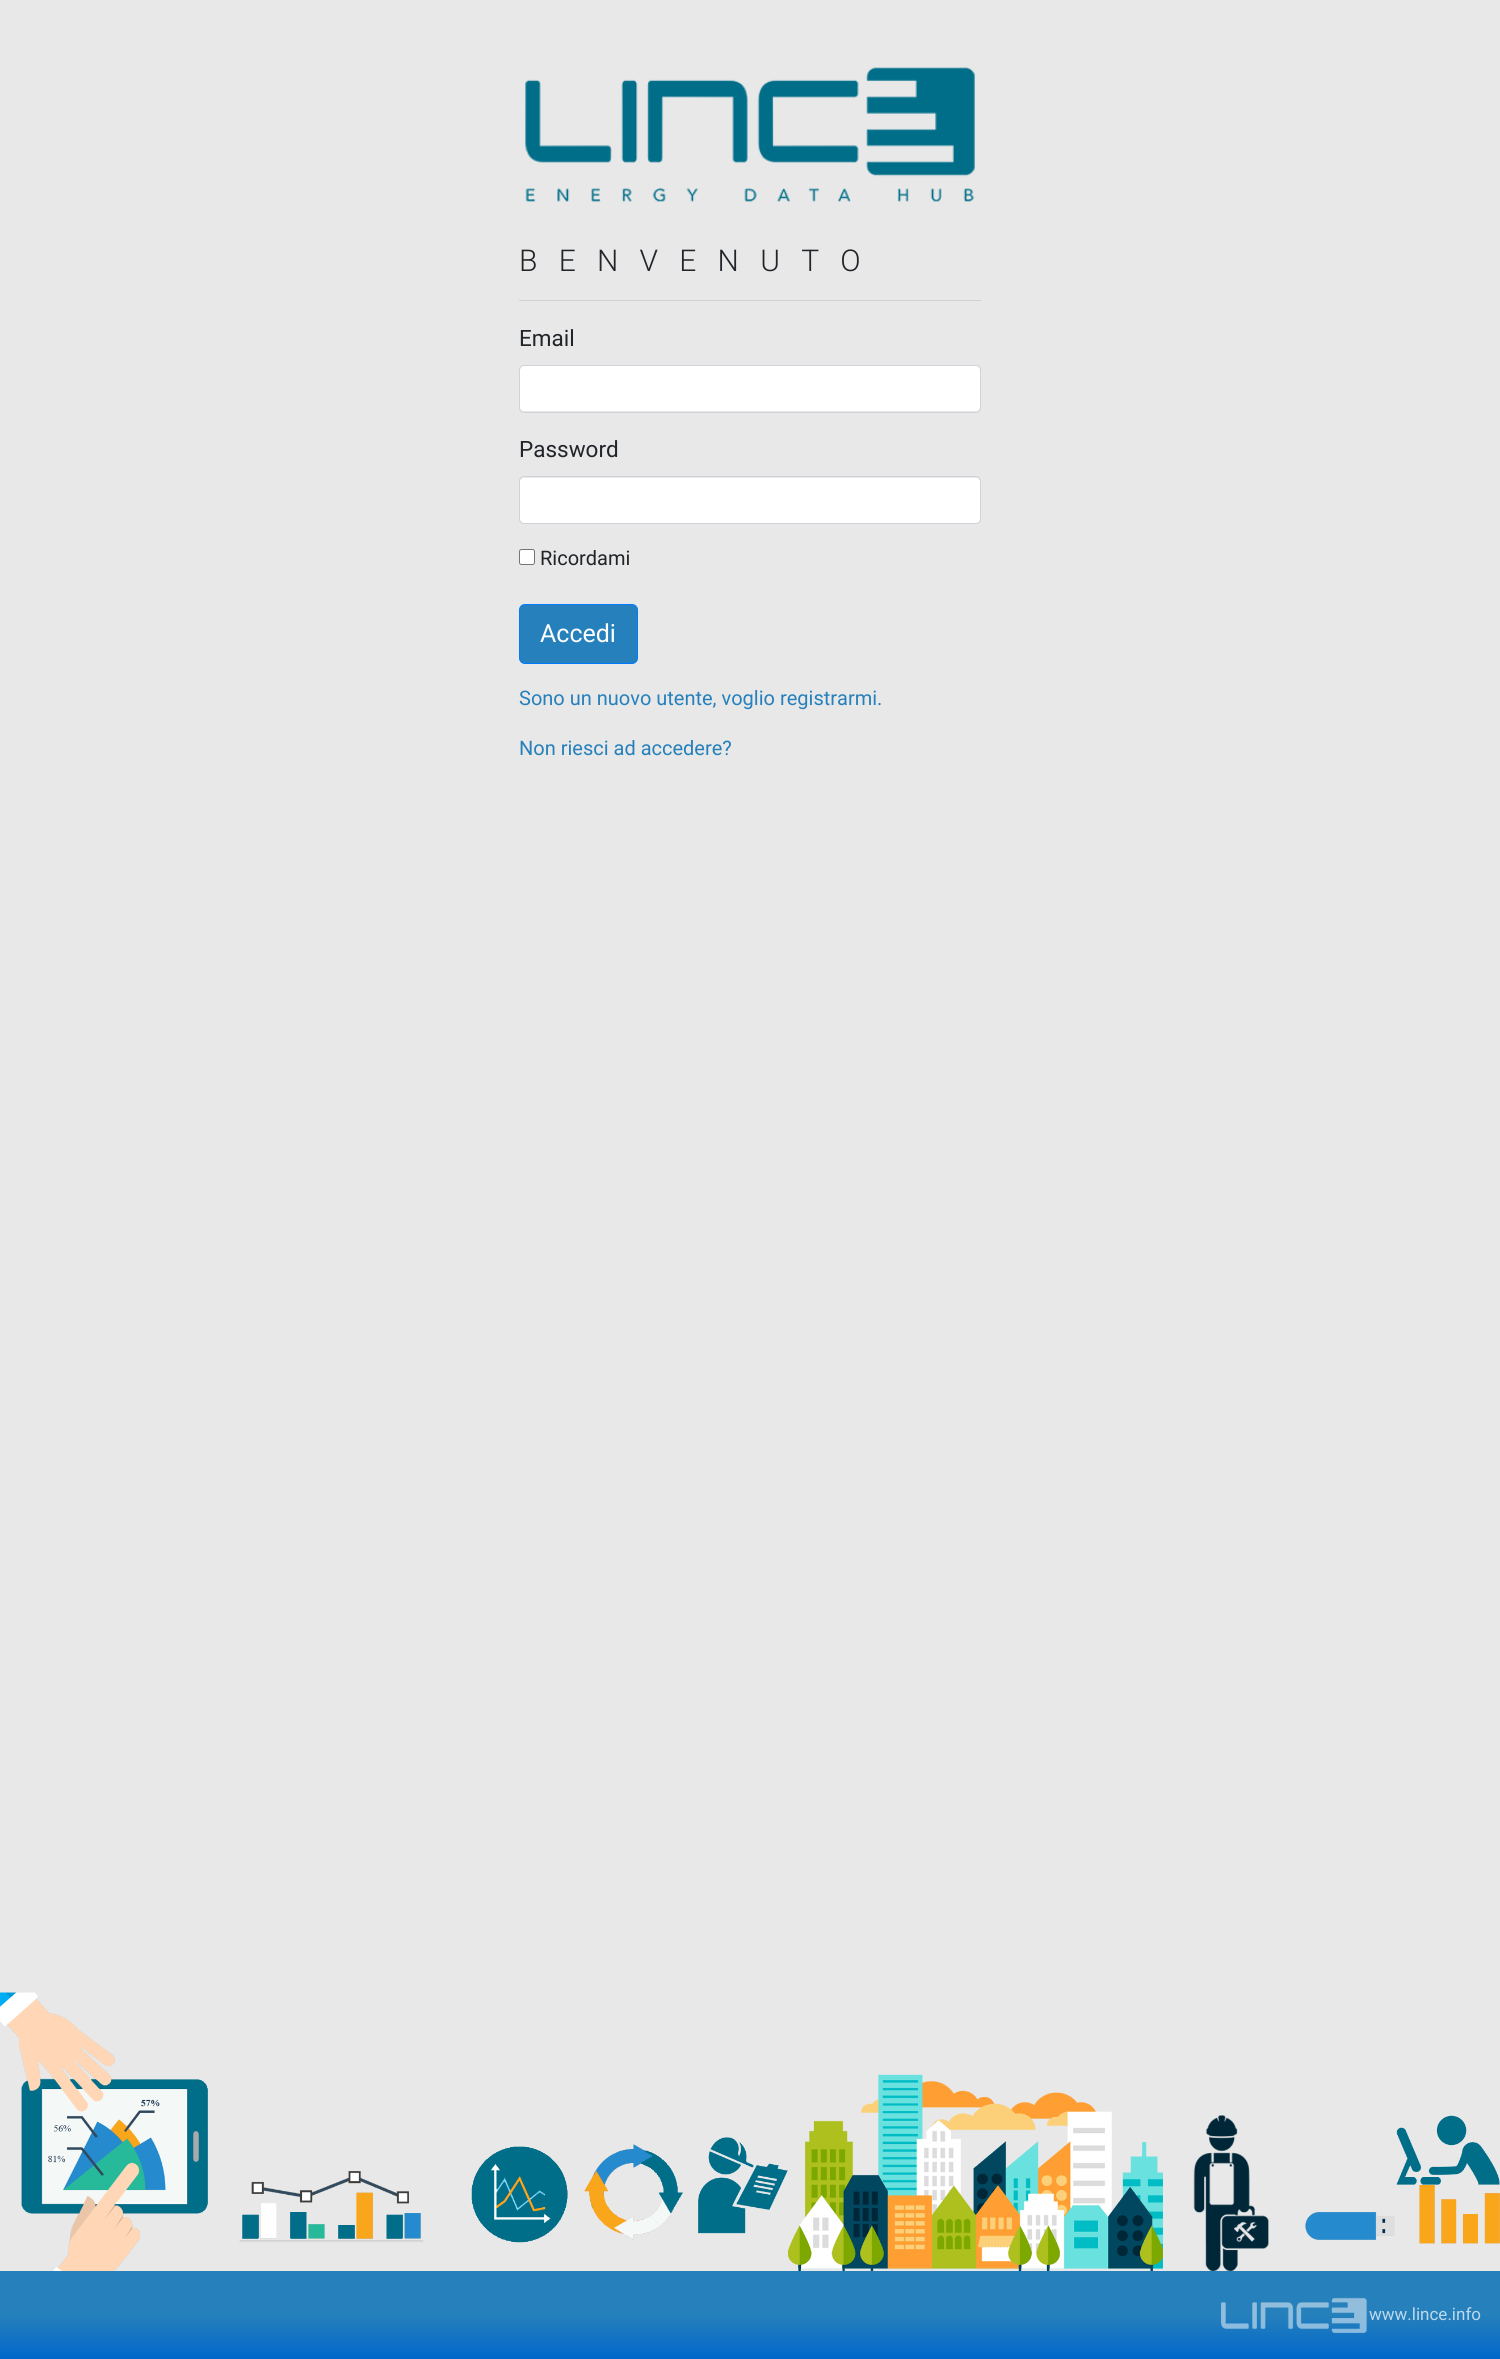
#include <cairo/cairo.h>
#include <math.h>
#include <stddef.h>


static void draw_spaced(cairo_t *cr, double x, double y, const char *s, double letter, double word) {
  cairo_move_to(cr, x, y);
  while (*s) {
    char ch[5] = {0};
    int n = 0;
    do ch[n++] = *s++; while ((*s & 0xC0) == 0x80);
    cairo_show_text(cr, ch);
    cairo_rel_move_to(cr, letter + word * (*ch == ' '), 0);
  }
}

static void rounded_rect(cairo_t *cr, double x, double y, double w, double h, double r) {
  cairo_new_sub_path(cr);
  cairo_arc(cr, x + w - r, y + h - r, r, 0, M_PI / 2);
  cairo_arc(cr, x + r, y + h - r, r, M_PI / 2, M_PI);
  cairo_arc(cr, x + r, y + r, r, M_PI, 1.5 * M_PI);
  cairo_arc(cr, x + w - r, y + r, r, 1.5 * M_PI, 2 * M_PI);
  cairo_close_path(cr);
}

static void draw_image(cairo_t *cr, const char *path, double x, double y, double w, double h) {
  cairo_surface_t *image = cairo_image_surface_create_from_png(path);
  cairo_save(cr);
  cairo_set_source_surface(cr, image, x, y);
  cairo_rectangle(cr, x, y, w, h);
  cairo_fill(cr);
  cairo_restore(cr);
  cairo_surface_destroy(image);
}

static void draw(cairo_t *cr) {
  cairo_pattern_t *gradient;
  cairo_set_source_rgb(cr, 232 / 255.0, 232 / 255.0, 232 / 255.0);
  cairo_paint(cr);
  draw_image(cr, "images/1.png", 0, 1992, 1500, 279);
  draw_image(cr, "images/2.png", 525, 67, 450, 135);
  cairo_set_source_rgb(cr, 209 / 255.0, 209 / 255.0, 209 / 255.0);
  cairo_rectangle(cr, 519, 300, 462, 1);
  cairo_fill(cr);
  cairo_set_source_rgb(cr, 1, 1, 1);
  rounded_rect(cr, 520, 366, 460, 45, 4);
  cairo_fill(cr);
  rounded_rect(cr, 519.5, 365.5, 461, 47, 4.5);
  cairo_set_source_rgb(cr, 206 / 255.0, 212 / 255.0, 218 / 255.0);
  cairo_set_line_width(cr, 1);
  cairo_stroke(cr);
  cairo_set_source_rgb(cr, 1, 1, 1);
  rounded_rect(cr, 520, 478, 460, 45, 4);
  cairo_fill(cr);
  rounded_rect(cr, 519.5, 476.5, 461, 47, 4.5);
  cairo_set_source_rgb(cr, 206 / 255.0, 212 / 255.0, 218 / 255.0);
  cairo_stroke(cr);
  cairo_set_source_rgb(cr, 1, 1, 1);
  rounded_rect(cr, 519.5, 549.5, 15, 15, 2);
  cairo_fill_preserve(cr);
  cairo_set_source_rgb(cr, 118 / 255.0, 118 / 255.0, 118 / 255.0);
  cairo_stroke(cr);
  cairo_set_source_rgb(cr, 37 / 255.0, 128 / 255.0, 187 / 255.0);
  rounded_rect(cr, 519.5, 604.5, 118, 59, 5.5);
  cairo_fill_preserve(cr);
  cairo_set_source_rgb(cr, 0, 123 / 255.0, 1);
  cairo_stroke(cr);
  gradient = cairo_pattern_create_linear(750, 2271, 750, 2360);
  cairo_pattern_add_color_stop_rgba(gradient, 0.5, 37 / 255.0, 128 / 255.0, 187 / 255.0, 1);
  cairo_pattern_add_color_stop_rgba(gradient, 1, 0, 102 / 255.0, 204 / 255.0, 1);
  cairo_set_source(cr, gradient);
  cairo_pattern_destroy(gradient);
  cairo_rectangle(cr, 0, 2271, 1500, 88);
  cairo_fill(cr);
  draw_image(cr, "images/3.png", 1221, 2297, 146, 36);
  cairo_select_font_face(cr, "Roboto Light", CAIRO_FONT_SLANT_NORMAL, CAIRO_FONT_WEIGHT_NORMAL);
  cairo_set_font_size(cr, 30);
  cairo_set_source_rgb(cr, 33 / 255.0, 37 / 255.0, 41 / 255.0);
  draw_spaced(cr, 519, 271, "BENVENUTO", 21.25, 0);
  cairo_select_font_face(cr, "Roboto", CAIRO_FONT_SLANT_NORMAL, CAIRO_FONT_WEIGHT_NORMAL);
  cairo_set_font_size(cr, 22.5);
  cairo_move_to(cr, 519, 346);
  cairo_show_text(cr, "Email");
  cairo_move_to(cr, 519, 457);
  cairo_show_text(cr, "Password");
  cairo_set_font_size(cr, 20);
  cairo_move_to(cr, 540, 565);
  cairo_show_text(cr, "Ricordami");
  cairo_set_font_size(cr, 25);
  cairo_set_source_rgb(cr, 1, 1, 1);
  cairo_move_to(cr, 540, 642);
  cairo_show_text(cr, "Accedi");
  cairo_set_font_size(cr, 20);
  cairo_set_source_rgb(cr, 37 / 255.0, 128 / 255.0, 187 / 255.0);
  cairo_move_to(cr, 519, 705);
  cairo_show_text(cr, "Sono un nuovo utente, voglio registrarmi.");
  cairo_move_to(cr, 519, 755);
  cairo_show_text(cr, "Non riesci ad accedere?");
  cairo_set_font_size(cr, 17);
  cairo_set_source_rgb(cr, 189 / 255.0, 217 / 255.0, 235 / 255.0);
  cairo_move_to(cr, 1369, 2320);
  cairo_show_text(cr, "www.lince.info");
}

int main(void) {
  cairo_surface_t *surface = cairo_image_surface_create(CAIRO_FORMAT_RGB24, 1500, 2359);
  cairo_t *cr = cairo_create(surface);
  cairo_font_options_t *options = cairo_font_options_create();
  cairo_font_options_set_hint_metrics(options, CAIRO_HINT_METRICS_OFF);
  cairo_font_options_set_hint_style(options, CAIRO_HINT_STYLE_NONE);
  cairo_set_font_options(cr, options);
  cairo_set_miter_limit(cr, 4);
  draw(cr);
  cairo_surface_write_to_png(surface, "out.png");
  cairo_font_options_destroy(options);
  cairo_destroy(cr);
  cairo_surface_destroy(surface);
  return 0;
}
